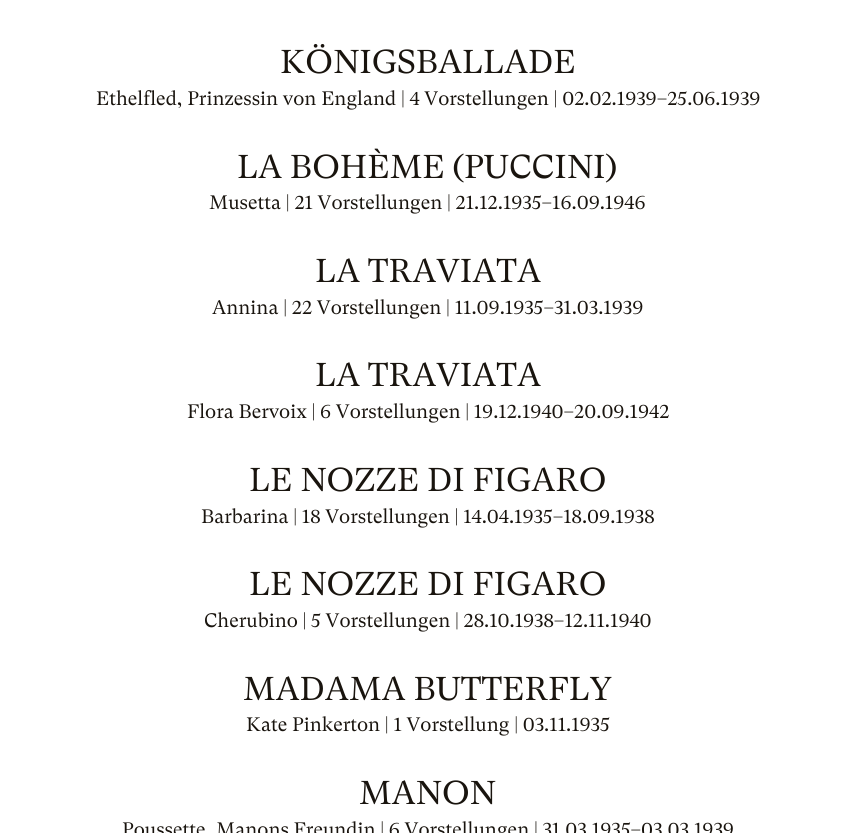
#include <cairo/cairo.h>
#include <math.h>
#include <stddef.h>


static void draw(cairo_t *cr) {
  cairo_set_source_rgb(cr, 1, 1, 1);
  cairo_paint(cr);
  cairo_select_font_face(cr, "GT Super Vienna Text", CAIRO_FONT_SLANT_NORMAL, CAIRO_FONT_WEIGHT_NORMAL);
  cairo_set_font_size(cr, 33);
  cairo_set_source_rgb(cr, 25 / 255.0, 20 / 255.0, 14 / 255.0);
  cairo_move_to(cr, 280, 73);
  cairo_show_text(cr, "KÖNIGSBALLADE");
  cairo_set_font_size(cr, 19.45);
  cairo_move_to(cr, 96, 105);
  cairo_show_text(cr, "Ethelfled, Prinzessin von England | 4 Vorstellungen | 02.02.1939–25.06.1939");
  cairo_set_font_size(cr, 33);
  cairo_move_to(cr, 237, 178);
  cairo_show_text(cr, "LA BOHÈME (PUCCINI)");
  cairo_set_font_size(cr, 19.45);
  cairo_move_to(cr, 209, 209);
  cairo_show_text(cr, "Musetta | 21 Vorstellungen | 21.12.1935–16.09.1946");
  cairo_set_font_size(cr, 33);
  cairo_move_to(cr, 315, 282);
  cairo_show_text(cr, "LA TRAVIATA");
  cairo_set_font_size(cr, 19.45);
  cairo_move_to(cr, 212, 314);
  cairo_show_text(cr, "Annina | 22 Vorstellungen | 11.09.1935–31.03.1939");
  cairo_set_font_size(cr, 33);
  cairo_move_to(cr, 315, 386);
  cairo_show_text(cr, "LA TRAVIATA");
  cairo_set_font_size(cr, 19.45);
  cairo_move_to(cr, 187, 418);
  cairo_show_text(cr, "Flora Bervoix | 6 Vorstellungen | 19.12.1940–20.09.1942");
  cairo_set_font_size(cr, 33);
  cairo_move_to(cr, 249, 491);
  cairo_show_text(cr, "LE NOZZE DI FIGARO");
  cairo_set_font_size(cr, 19.45);
  cairo_move_to(cr, 201, 523);
  cairo_show_text(cr, "Barbarina | 18 Vorstellungen | 14.04.1935–18.09.1938");
  cairo_set_font_size(cr, 33);
  cairo_move_to(cr, 249, 595);
  cairo_show_text(cr, "LE NOZZE DI FIGARO");
  cairo_set_font_size(cr, 19.45);
  cairo_move_to(cr, 204, 627);
  cairo_show_text(cr, "Cherubino | 5 Vorstellungen | 28.10.1938–12.11.1940");
  cairo_set_font_size(cr, 33);
  cairo_move_to(cr, 243, 700);
  cairo_show_text(cr, "MADAMA BUTTERFLY");
  cairo_set_font_size(cr, 19.45);
  cairo_move_to(cr, 246, 731);
  cairo_show_text(cr, "Kate Pinkerton | 1 Vorstellung | 03.11.1935");
  cairo_set_font_size(cr, 33);
  cairo_move_to(cr, 359, 804);
  cairo_show_text(cr, "MANON");
  cairo_set_font_size(cr, 19.45);
  cairo_move_to(cr, 122, 836);
  cairo_show_text(cr, "Poussette, Manons Freundin | 6 Vorstellungen | 31.03.1935–03.03.1939");
}

int main(void) {
  cairo_surface_t *surface = cairo_image_surface_create(CAIRO_FORMAT_RGB24, 855, 833);
  cairo_t *cr = cairo_create(surface);
  cairo_font_options_t *options = cairo_font_options_create();
  cairo_font_options_set_hint_metrics(options, CAIRO_HINT_METRICS_OFF);
  cairo_font_options_set_hint_style(options, CAIRO_HINT_STYLE_NONE);
  cairo_set_font_options(cr, options);
  cairo_set_miter_limit(cr, 4);
  draw(cr);
  cairo_surface_write_to_png(surface, "out.png");
  cairo_font_options_destroy(options);
  cairo_destroy(cr);
  cairo_surface_destroy(surface);
  return 0;
}
